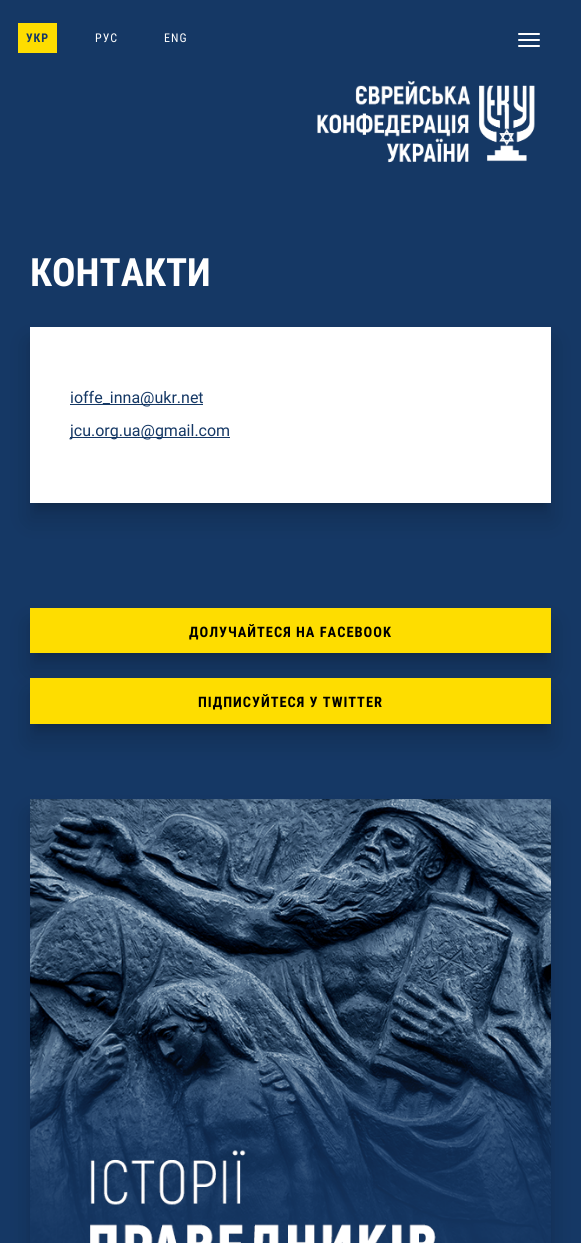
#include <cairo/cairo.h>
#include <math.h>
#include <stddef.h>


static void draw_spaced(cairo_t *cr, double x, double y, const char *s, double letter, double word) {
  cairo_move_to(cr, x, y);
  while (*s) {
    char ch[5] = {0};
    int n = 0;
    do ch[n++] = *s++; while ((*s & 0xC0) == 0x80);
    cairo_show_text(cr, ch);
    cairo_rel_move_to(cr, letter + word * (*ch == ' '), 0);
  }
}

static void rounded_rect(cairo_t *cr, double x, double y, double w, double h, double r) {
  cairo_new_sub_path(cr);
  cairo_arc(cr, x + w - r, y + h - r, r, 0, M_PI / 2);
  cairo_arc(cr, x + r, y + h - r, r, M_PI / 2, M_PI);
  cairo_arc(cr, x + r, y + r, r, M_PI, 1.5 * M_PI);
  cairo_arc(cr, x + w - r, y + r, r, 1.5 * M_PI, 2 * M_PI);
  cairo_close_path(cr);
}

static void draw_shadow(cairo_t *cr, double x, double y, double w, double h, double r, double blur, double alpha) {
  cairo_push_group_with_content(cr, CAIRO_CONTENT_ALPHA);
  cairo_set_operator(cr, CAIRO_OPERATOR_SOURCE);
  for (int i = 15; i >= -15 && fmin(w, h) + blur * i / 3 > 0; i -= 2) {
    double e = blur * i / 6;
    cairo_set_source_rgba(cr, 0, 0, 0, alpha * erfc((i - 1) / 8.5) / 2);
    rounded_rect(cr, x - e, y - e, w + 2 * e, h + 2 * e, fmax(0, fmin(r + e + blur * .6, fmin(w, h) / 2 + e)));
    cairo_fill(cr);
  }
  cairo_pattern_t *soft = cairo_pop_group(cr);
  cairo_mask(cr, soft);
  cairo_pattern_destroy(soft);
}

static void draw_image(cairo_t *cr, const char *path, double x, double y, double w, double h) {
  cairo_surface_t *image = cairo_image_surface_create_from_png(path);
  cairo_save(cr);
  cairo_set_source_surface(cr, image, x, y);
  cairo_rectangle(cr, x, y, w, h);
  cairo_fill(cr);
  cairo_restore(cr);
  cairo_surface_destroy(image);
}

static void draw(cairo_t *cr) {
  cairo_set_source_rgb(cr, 21 / 255.0, 56 / 255.0, 101 / 255.0);
  cairo_paint(cr);
  cairo_set_source_rgb(cr, 254 / 255.0, 221 / 255.0, 0);
  cairo_rectangle(cr, 18, 23, 39, 30);
  cairo_fill(cr);
  draw_image(cr, "images/1.png", 317, 81, 218, 82);
  cairo_set_source_rgb(cr, 1, 1, 1);
  rounded_rect(cr, 518, 33, 22, 2, 1);
  cairo_fill(cr);
  rounded_rect(cr, 518, 39, 22, 2, 1);
  cairo_fill(cr);
  rounded_rect(cr, 518, 45, 22, 2, 1);
  cairo_fill(cr);
  cairo_set_source_rgb(cr, 0, 0, 0);
  draw_shadow(cr, 35, 340, 511, 166, 0, 5, 0.2);
  draw_shadow(cr, 28, 341, 525, 180, 0, 12, 0.14);
  cairo_set_source_rgb(cr, 1, 1, 1);
  cairo_rectangle(cr, 30, 327, 521, 176);
  cairo_fill(cr);
  cairo_set_source_rgb(cr, 21 / 255.0, 56 / 255.0, 101 / 255.0);
  cairo_rectangle(cr, 70, 404, 133, 1);
  cairo_fill(cr);
  cairo_rectangle(cr, 70, 437, 160, 1);
  cairo_fill(cr);
  cairo_set_source_rgb(cr, 0, 0, 0);
  draw_shadow(cr, 35, 621, 511, 35, 0, 5, 0.2);
  draw_shadow(cr, 28, 622, 525, 49, 0, 12, 0.14);
  cairo_set_source_rgb(cr, 254 / 255.0, 221 / 255.0, 0);
  cairo_rectangle(cr, 30, 608, 521, 45);
  cairo_fill(cr);
  cairo_set_source_rgb(cr, 0, 0, 0);
  draw_shadow(cr, 35, 691, 511, 36, 0, 5, 0.2);
  draw_shadow(cr, 28, 692, 525, 50, 0, 12, 0.14);
  cairo_set_source_rgb(cr, 254 / 255.0, 221 / 255.0, 0);
  cairo_rectangle(cr, 30, 678, 521, 46);
  cairo_fill(cr);
  cairo_set_source_rgb(cr, 0, 0, 0);
  draw_shadow(cr, 35, 812, 511, 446, 0, 5, 0.2);
  draw_shadow(cr, 28, 813, 525, 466, 0, 12, 0.14);
  draw_image(cr, "images/2.png", 30, 799, 521, 444);
  cairo_select_font_face(cr, "Roboto Condensed", CAIRO_FONT_SLANT_NORMAL, CAIRO_FONT_WEIGHT_BOLD);
  cairo_set_font_size(cr, 12);
  cairo_set_source_rgb(cr, 21 / 255.0, 56 / 255.0, 101 / 255.0);
  draw_spaced(cr, 26, 42, "УКР", 1, 0);
  cairo_select_font_face(cr, "Roboto Condensed", CAIRO_FONT_SLANT_NORMAL, CAIRO_FONT_WEIGHT_NORMAL);
  cairo_set_source_rgb(cr, 1, 1, 1);
  draw_spaced(cr, 95, 42, "РУС", 1, 0);
  draw_spaced(cr, 164, 42, "ENG", 1, 0);
  cairo_select_font_face(cr, "Roboto Condensed", CAIRO_FONT_SLANT_NORMAL, CAIRO_FONT_WEIGHT_BOLD);
  cairo_set_font_size(cr, 39);
  cairo_move_to(cr, 30, 286);
  cairo_show_text(cr, "КОНТАКТИ");
  cairo_select_font_face(cr, "Roboto", CAIRO_FONT_SLANT_NORMAL, CAIRO_FONT_WEIGHT_NORMAL);
  cairo_set_font_size(cr, 16);
  cairo_set_source_rgb(cr, 21 / 255.0, 56 / 255.0, 101 / 255.0);
  cairo_move_to(cr, 70, 403);
  cairo_show_text(cr, "ioffe_inna@ukr.net");
  cairo_move_to(cr, 70, 436);
  cairo_show_text(cr, "jcu.org.ua@gmail.com");
  cairo_select_font_face(cr, "Roboto Condensed", CAIRO_FONT_SLANT_NORMAL, CAIRO_FONT_WEIGHT_BOLD);
  cairo_set_font_size(cr, 14.4);
  cairo_set_source_rgb(cr, 0, 0, 0);
  draw_spaced(cr, 189, 637, "ДОЛУЧАЙТЕСЯ НА FACEBOOK", 1, 0);
  draw_spaced(cr, 198, 707, "ПІДПИСУЙТЕСЯ У TWITTER", 1, 0);
}

int main(void) {
  cairo_surface_t *surface = cairo_image_surface_create(CAIRO_FORMAT_RGB24, 581, 1243);
  cairo_t *cr = cairo_create(surface);
  cairo_font_options_t *options = cairo_font_options_create();
  cairo_font_options_set_hint_metrics(options, CAIRO_HINT_METRICS_OFF);
  cairo_font_options_set_hint_style(options, CAIRO_HINT_STYLE_NONE);
  cairo_set_font_options(cr, options);
  cairo_set_miter_limit(cr, 4);
  draw(cr);
  cairo_surface_write_to_png(surface, "out.png");
  cairo_font_options_destroy(options);
  cairo_destroy(cr);
  cairo_surface_destroy(surface);
  return 0;
}
